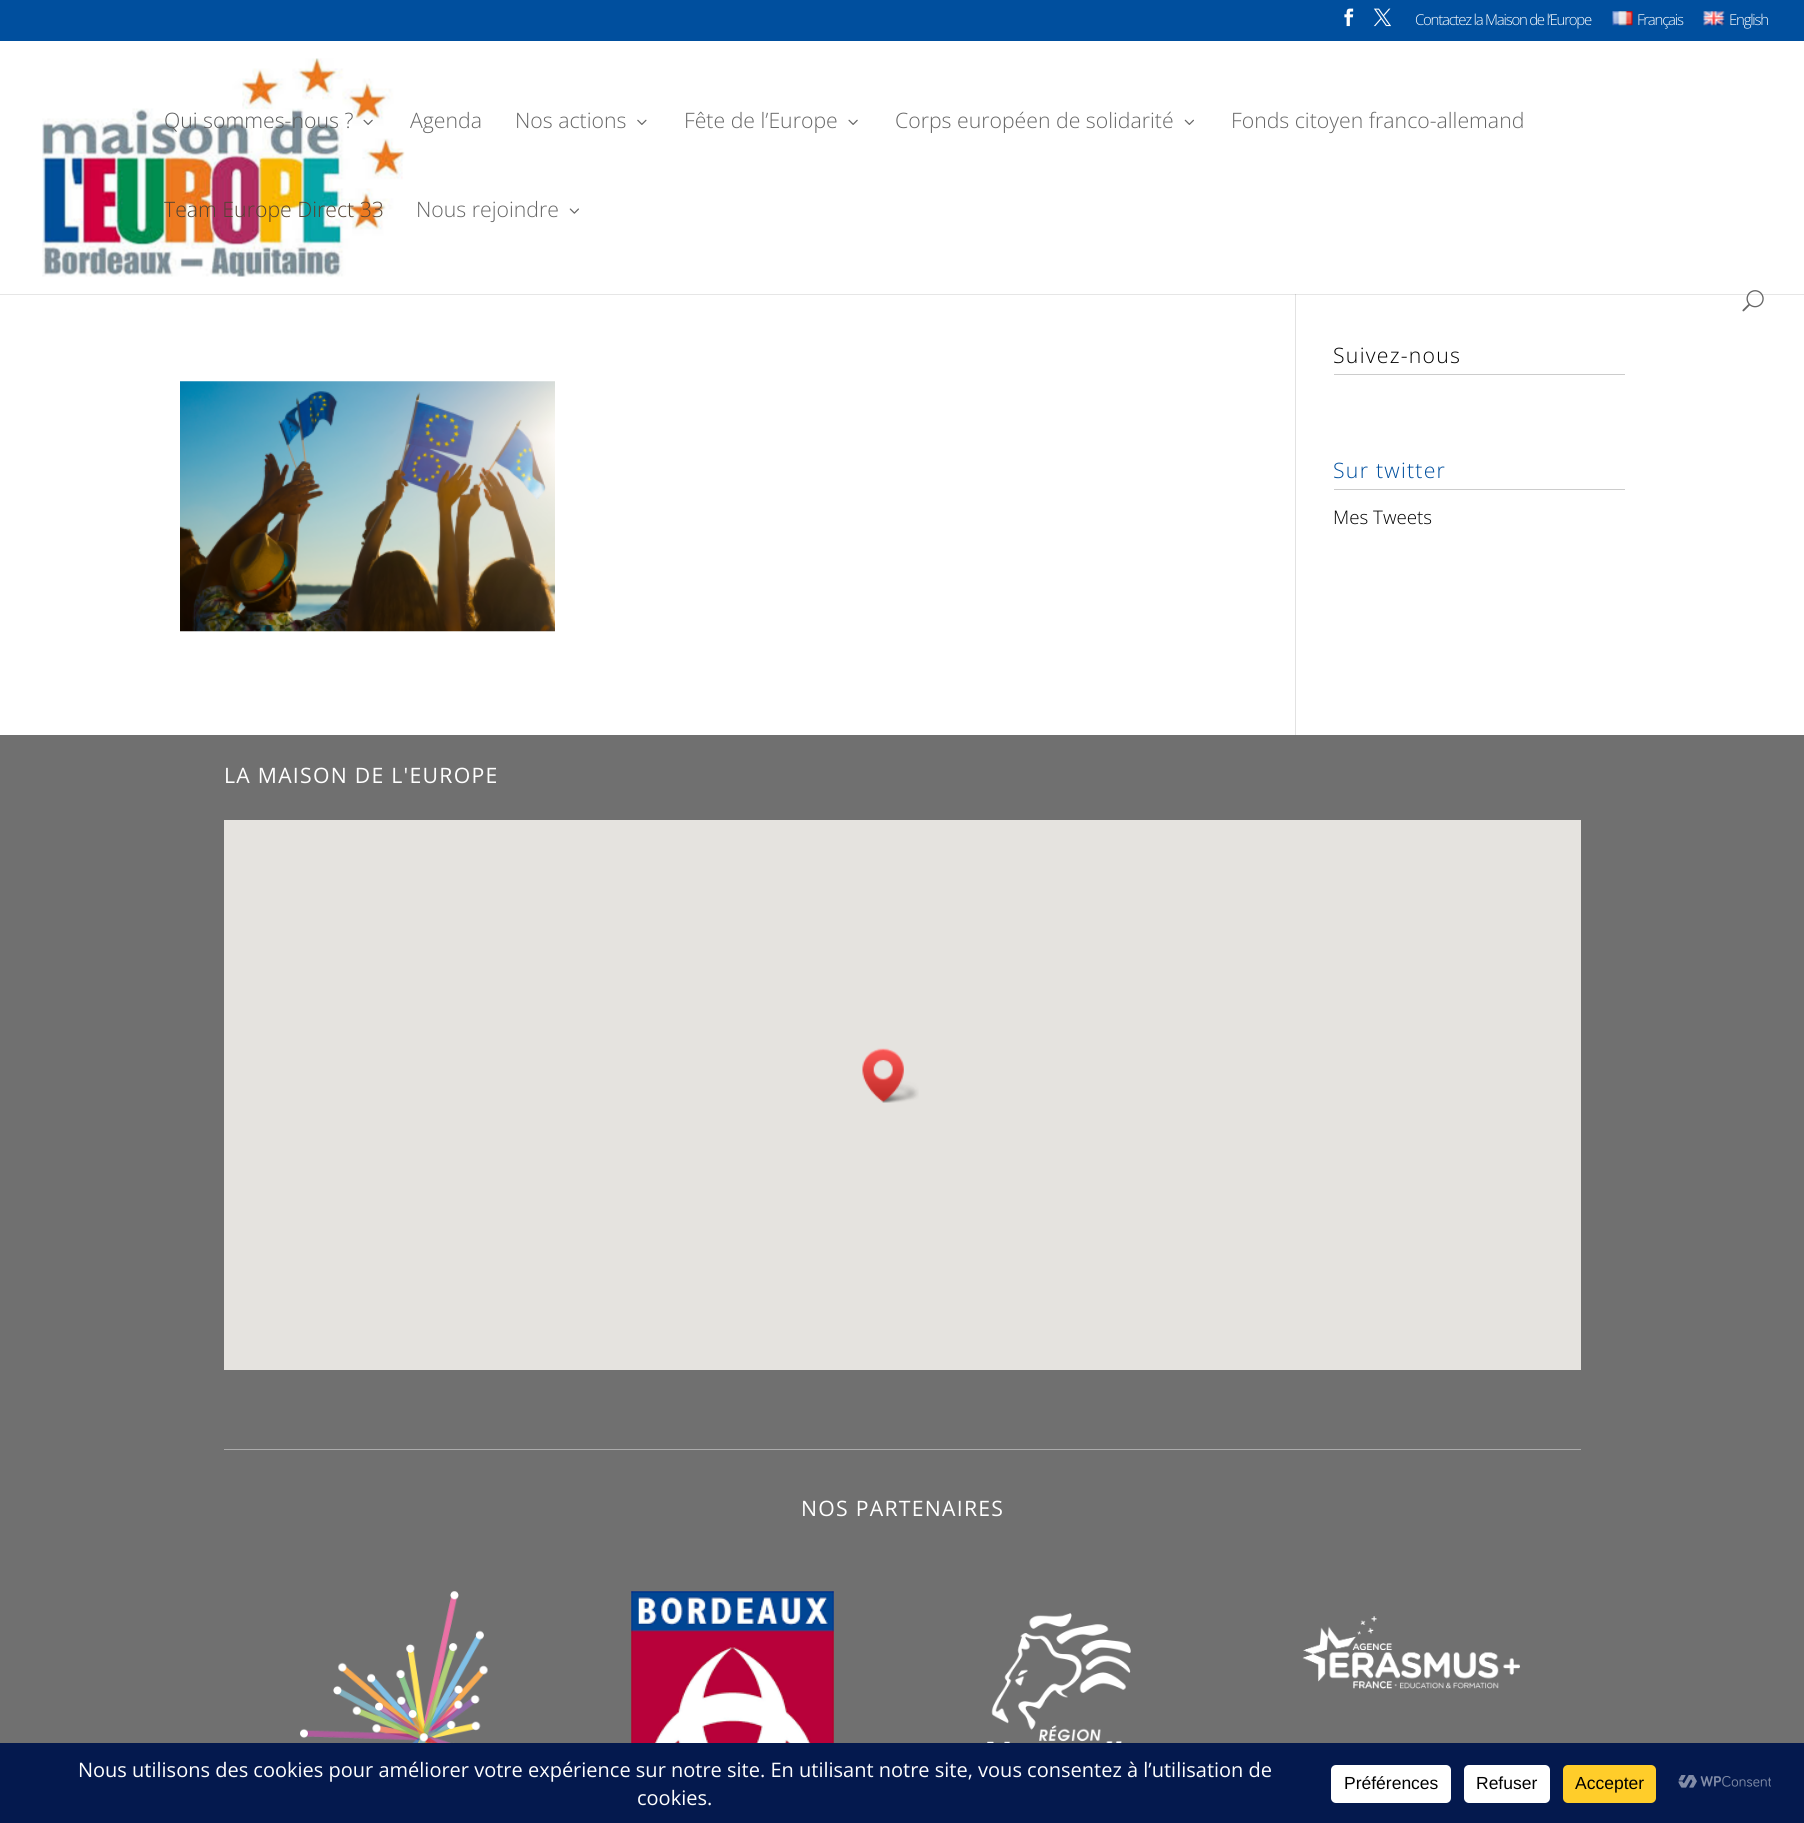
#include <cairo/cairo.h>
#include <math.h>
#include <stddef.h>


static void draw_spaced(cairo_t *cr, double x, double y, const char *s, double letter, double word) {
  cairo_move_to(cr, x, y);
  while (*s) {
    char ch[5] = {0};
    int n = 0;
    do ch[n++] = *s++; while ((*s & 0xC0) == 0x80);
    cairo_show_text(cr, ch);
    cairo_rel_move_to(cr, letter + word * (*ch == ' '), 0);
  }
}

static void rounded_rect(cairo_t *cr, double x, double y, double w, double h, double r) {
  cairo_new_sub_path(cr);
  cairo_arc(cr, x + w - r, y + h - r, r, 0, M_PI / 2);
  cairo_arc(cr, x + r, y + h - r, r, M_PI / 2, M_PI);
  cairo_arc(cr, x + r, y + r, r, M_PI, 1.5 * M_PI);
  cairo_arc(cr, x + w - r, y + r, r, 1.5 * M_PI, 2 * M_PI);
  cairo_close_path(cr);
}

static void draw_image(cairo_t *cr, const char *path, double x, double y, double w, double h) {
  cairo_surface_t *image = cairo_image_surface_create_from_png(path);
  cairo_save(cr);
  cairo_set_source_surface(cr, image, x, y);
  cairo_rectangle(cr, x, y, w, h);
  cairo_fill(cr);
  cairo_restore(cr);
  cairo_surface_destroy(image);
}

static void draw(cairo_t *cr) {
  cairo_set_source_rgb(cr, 1, 1, 1);
  cairo_paint(cr);
  cairo_set_source_rgb(cr, 230 / 255.0, 230 / 255.0, 230 / 255.0);
  cairo_rectangle(cr, 0, 294, 1804, 1);
  cairo_fill(cr);
  cairo_set_source_rgb(cr, 0, 79 / 255.0, 158 / 255.0);
  cairo_rectangle(cr, 0, 0, 1804, 41);
  cairo_fill(cr);
  draw_image(cr, "images/1.png", 1344, 8, 10, 19);
  draw_image(cr, "images/2.png", 1373, 8, 18, 19);
  draw_image(cr, "images/3.png", 1612, 11, 21, 15);
  draw_image(cr, "images/4.png", 1703, 11, 22, 15);
  draw_image(cr, "images/5.png", 42, 58, 363, 219);
  draw_image(cr, "images/6.png", 363, 119, 10, 6);
  draw_image(cr, "images/7.png", 637, 119, 10, 6);
  draw_image(cr, "images/8.png", 848, 119, 10, 6);
  draw_image(cr, "images/9.png", 1184, 119, 10, 6);
  draw_image(cr, "images/10.png", 569, 208, 10, 6);
  draw_image(cr, "images/11.png", 1742, 290, 22, 22);
  cairo_set_source_rgb(cr, 226 / 255.0, 226 / 255.0, 226 / 255.0);
  cairo_rectangle(cr, 1295, 295, 1, 440);
  cairo_fill(cr);
  cairo_set_source_rgb(cr, 203 / 255.0, 203 / 255.0, 203 / 255.0);
  cairo_rectangle(cr, 1295, 294, 1, 1);
  cairo_fill(cr);
  draw_image(cr, "images/12.png", 180, 381, 375, 251);
  cairo_set_source_rgb(cr, 204 / 255.0, 204 / 255.0, 204 / 255.0);
  cairo_rectangle(cr, 1334, 374, 291, 1);
  cairo_fill(cr);
  cairo_rectangle(cr, 1334, 489, 291, 1);
  cairo_fill(cr);
  cairo_set_source_rgb(cr, 112 / 255.0, 112 / 255.0, 112 / 255.0);
  cairo_rectangle(cr, 0, 735, 1804, 1008);
  cairo_fill(cr);
  cairo_set_source_rgb(cr, 229 / 255.0, 227 / 255.0, 223 / 255.0);
  cairo_rectangle(cr, 224, 820, 1357, 550);
  cairo_fill(cr);
  draw_image(cr, "images/13.png", 862, 1048, 57, 55);
  cairo_set_source_rgb(cr, 170 / 255.0, 170 / 255.0, 170 / 255.0);
  cairo_rectangle(cr, 224, 1449, 1357, 1);
  cairo_fill(cr);
  draw_image(cr, "images/14.png", 300, 1591, 188, 152);
  draw_image(cr, "images/15.png", 631, 1591, 203, 152);
  draw_image(cr, "images/16.png", 987, 1613, 144, 130);
  draw_image(cr, "images/17.png", 1302, 1616, 218, 73);
  cairo_set_source_rgb(cr, 4 / 255.0, 25 / 255.0, 78 / 255.0);
  cairo_rectangle(cr, 0, 1743, 1804, 80);
  cairo_fill(cr);
  cairo_set_source_rgb(cr, 1, 1, 1);
  rounded_rect(cr, 1331, 1765, 120, 38, 5);
  cairo_fill(cr);
  rounded_rect(cr, 1464, 1765, 86, 38, 5);
  cairo_fill(cr);
  cairo_set_source_rgb(cr, 1, 205 / 255.0, 42 / 255.0);
  rounded_rect(cr, 1563, 1765, 93, 38, 5);
  cairo_fill(cr);
  draw_image(cr, "images/18.png", 1678, 1775, 93, 13);
  cairo_select_font_face(cr, "Open Sans Light", CAIRO_FONT_SLANT_NORMAL, CAIRO_FONT_WEIGHT_NORMAL);
  cairo_set_font_size(cr, 15);
  cairo_set_source_rgb(cr, 1, 1, 1);
  draw_spaced(cr, 1415, 25, "Contactez la Maison de l’Europe", -1.25, 0);
  draw_spaced(cr, 1637, 25, "Français", -1.25, 0);
  draw_spaced(cr, 1729, 25, "English", -1.25, 0);
  cairo_set_font_size(cr, 21.25);
  cairo_set_source_rgb(cr, 91 / 255.0, 92 / 255.0, 93 / 255.0);
  cairo_move_to(cr, 164, 128);
  cairo_show_text(cr, "Qui sommes-nous ?");
  cairo_set_source_rgb(cr, 102 / 255.0, 102 / 255.0, 102 / 255.0);
  cairo_move_to(cr, 410, 128);
  cairo_show_text(cr, "Agenda");
  cairo_move_to(cr, 515, 128);
  cairo_show_text(cr, "Nos actions");
  cairo_move_to(cr, 684, 128);
  cairo_show_text(cr, "Fête de l’Europe");
  cairo_move_to(cr, 895, 128);
  cairo_show_text(cr, "Corps européen de solidarité");
  cairo_move_to(cr, 1231, 128);
  cairo_show_text(cr, "Fonds citoyen franco-allemand");
  cairo_set_source_rgb(cr, 83 / 255.0, 67 / 255.0, 51 / 255.0);
  cairo_move_to(cr, 164, 217);
  cairo_show_text(cr, "Team Europe Direct 33");
  cairo_set_source_rgb(cr, 102 / 255.0, 102 / 255.0, 102 / 255.0);
  cairo_move_to(cr, 416, 217);
  cairo_show_text(cr, "Nous rejoindre");
  cairo_set_source_rgb(cr, 0, 0, 0);
  draw_spaced(cr, 1333, 363, "Suivez-nous", 1.25, 0);
  cairo_set_source_rgb(cr, 0, 79 / 255.0, 158 / 255.0);
  draw_spaced(cr, 1333, 478, "Sur twitter", 1.25, 0);
  cairo_set_font_size(cr, 18.75);
  cairo_set_source_rgb(cr, 0, 0, 0);
  cairo_move_to(cr, 1333, 524);
  cairo_show_text(cr, "Mes Tweets");
  cairo_select_font_face(cr, "Open Sans", CAIRO_FONT_SLANT_NORMAL, CAIRO_FONT_WEIGHT_NORMAL);
  cairo_set_font_size(cr, 21.25);
  cairo_set_source_rgb(cr, 1, 1, 1);
  draw_spaced(cr, 224, 783, "LA MAISON DE L'EUROPE", 1.25, 0);
  draw_spaced(cr, 801, 1516, "NOS PARTENAIRES", 1.25, 0);
  cairo_set_font_size(cr, 20);
  cairo_move_to(cr, 78, 1777);
  cairo_show_text(cr, "Nous utilisons des cookies pour améliorer votre expérience sur notre site. En utilisant notre site, vous consentez à l’utilisation de");
  cairo_move_to(cr, 637, 1805);
  cairo_show_text(cr, "cookies.");
  cairo_select_font_face(cr, "Liberation Sans", CAIRO_FONT_SLANT_NORMAL, CAIRO_FONT_WEIGHT_NORMAL);
  cairo_set_font_size(cr, 17.5);
  cairo_set_source_rgb(cr, 0, 0, 0);
  cairo_move_to(cr, 1344, 1789);
  cairo_show_text(cr, "Préférences");
  cairo_move_to(cr, 1476, 1789);
  cairo_show_text(cr, "Refuser");
  cairo_move_to(cr, 1575, 1789);
  cairo_show_text(cr, "Accepter");
}

int main(void) {
  cairo_surface_t *surface = cairo_image_surface_create(CAIRO_FORMAT_RGB24, 1804, 1823);
  cairo_t *cr = cairo_create(surface);
  cairo_font_options_t *options = cairo_font_options_create();
  cairo_font_options_set_hint_metrics(options, CAIRO_HINT_METRICS_OFF);
  cairo_font_options_set_hint_style(options, CAIRO_HINT_STYLE_NONE);
  cairo_set_font_options(cr, options);
  cairo_set_miter_limit(cr, 4);
  draw(cr);
  cairo_surface_write_to_png(surface, "out.png");
  cairo_font_options_destroy(options);
  cairo_destroy(cr);
  cairo_surface_destroy(surface);
  return 0;
}
